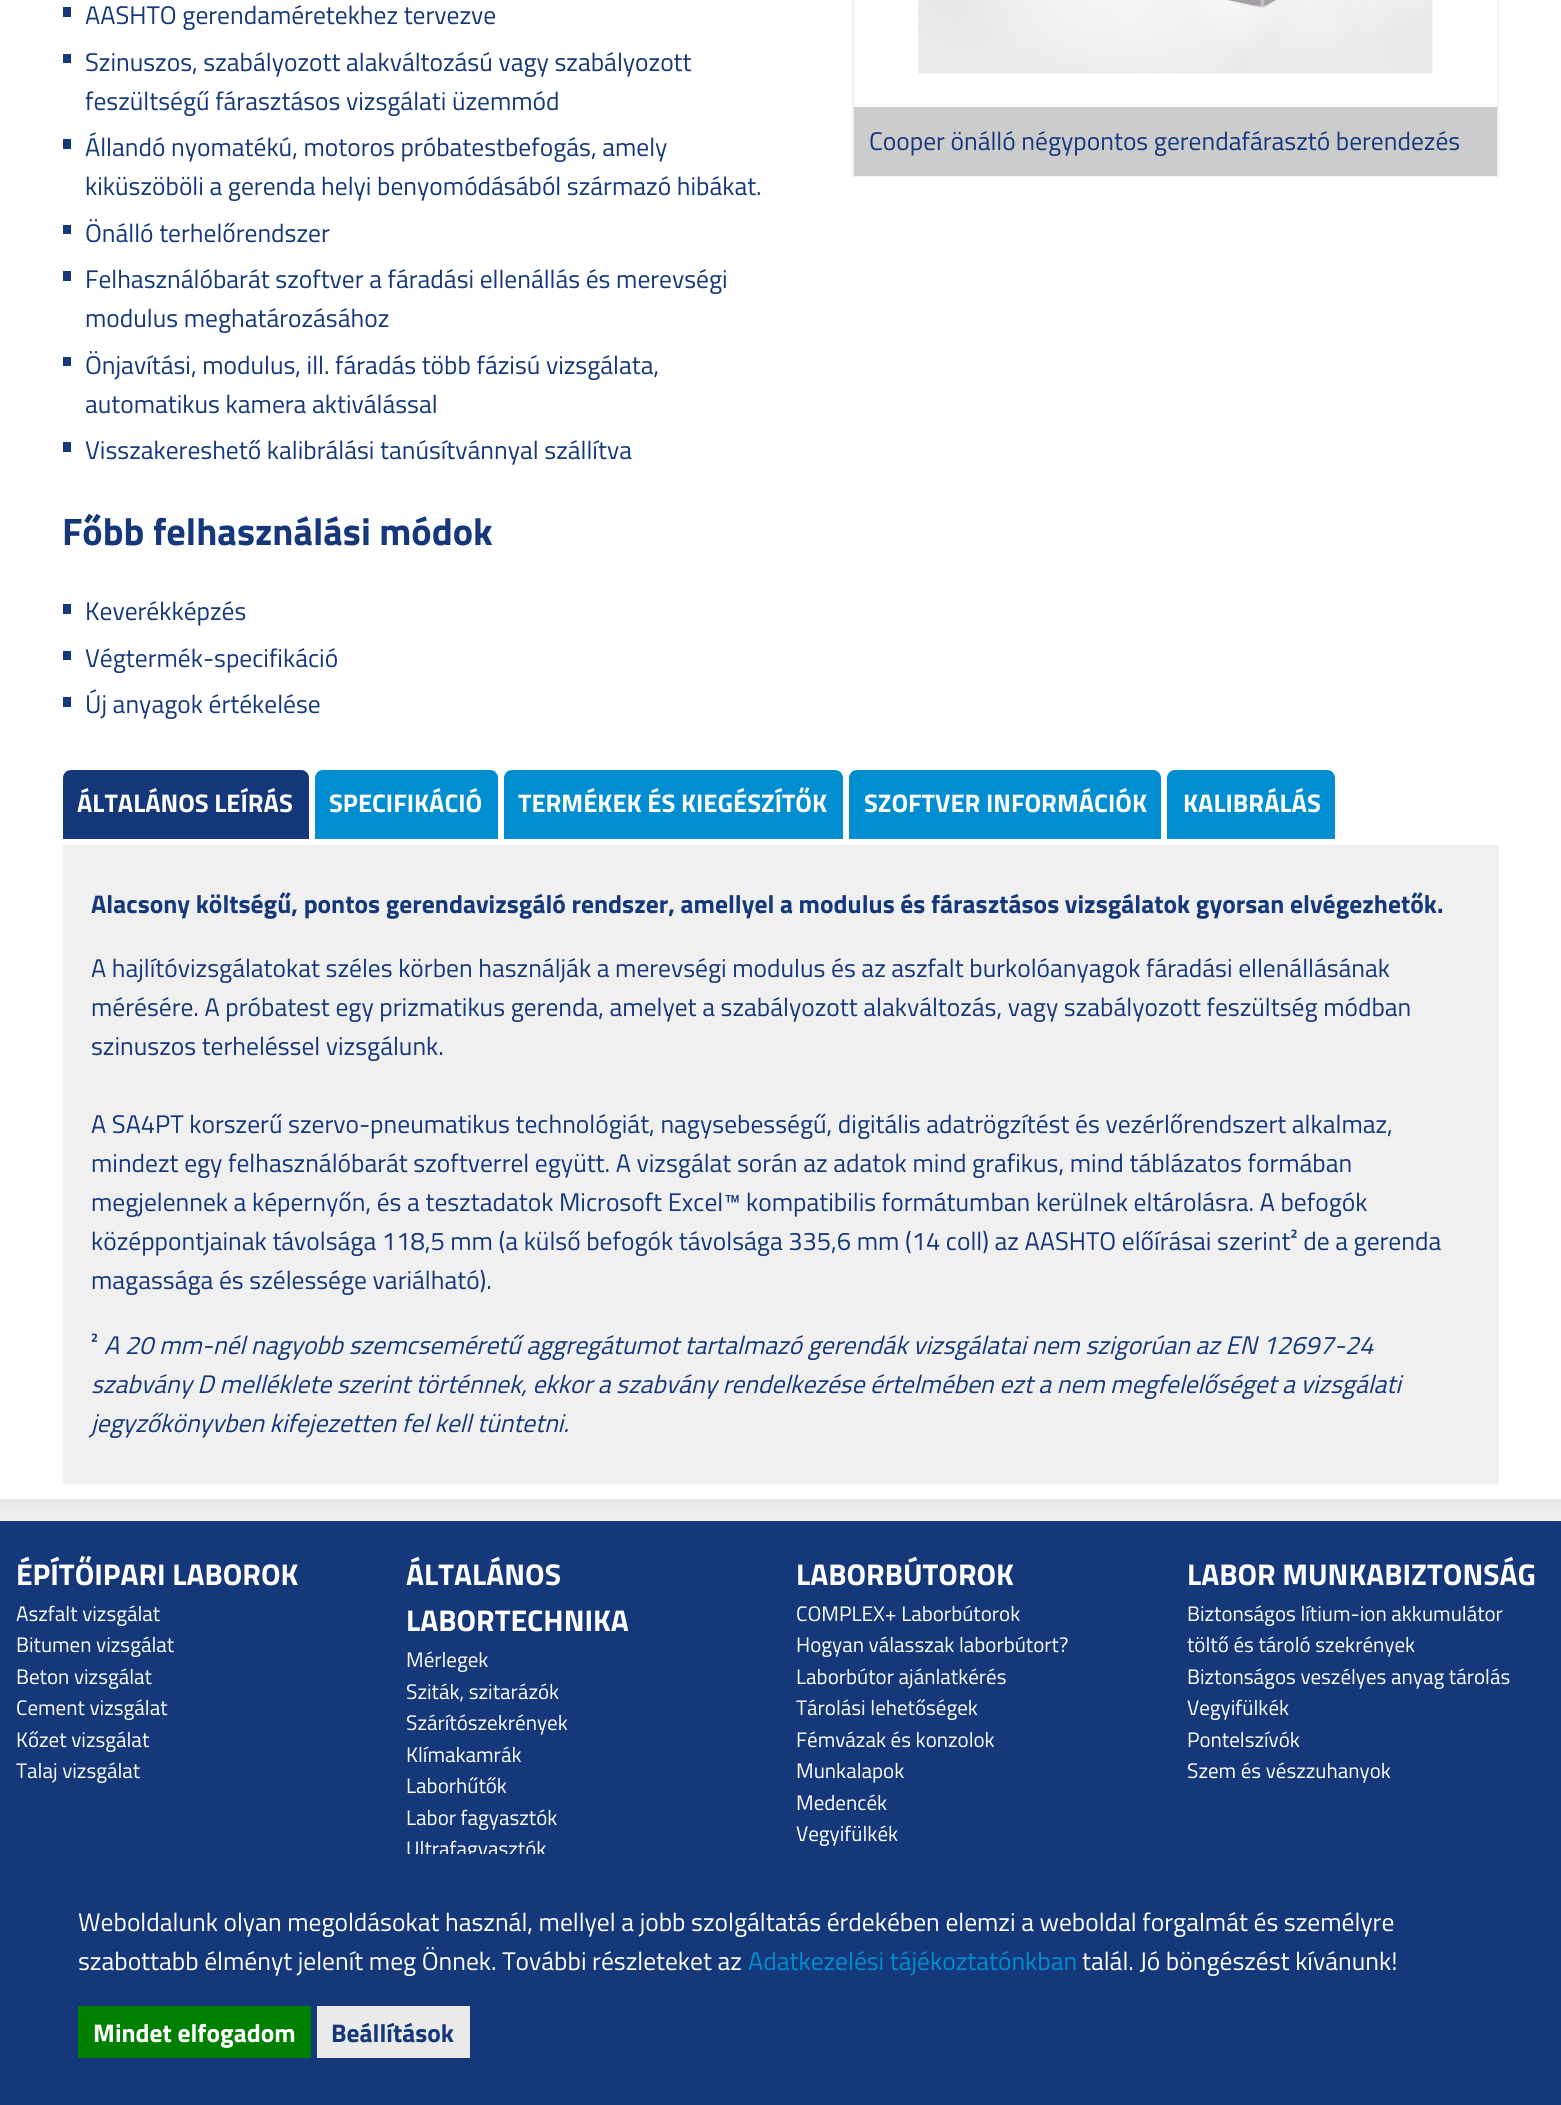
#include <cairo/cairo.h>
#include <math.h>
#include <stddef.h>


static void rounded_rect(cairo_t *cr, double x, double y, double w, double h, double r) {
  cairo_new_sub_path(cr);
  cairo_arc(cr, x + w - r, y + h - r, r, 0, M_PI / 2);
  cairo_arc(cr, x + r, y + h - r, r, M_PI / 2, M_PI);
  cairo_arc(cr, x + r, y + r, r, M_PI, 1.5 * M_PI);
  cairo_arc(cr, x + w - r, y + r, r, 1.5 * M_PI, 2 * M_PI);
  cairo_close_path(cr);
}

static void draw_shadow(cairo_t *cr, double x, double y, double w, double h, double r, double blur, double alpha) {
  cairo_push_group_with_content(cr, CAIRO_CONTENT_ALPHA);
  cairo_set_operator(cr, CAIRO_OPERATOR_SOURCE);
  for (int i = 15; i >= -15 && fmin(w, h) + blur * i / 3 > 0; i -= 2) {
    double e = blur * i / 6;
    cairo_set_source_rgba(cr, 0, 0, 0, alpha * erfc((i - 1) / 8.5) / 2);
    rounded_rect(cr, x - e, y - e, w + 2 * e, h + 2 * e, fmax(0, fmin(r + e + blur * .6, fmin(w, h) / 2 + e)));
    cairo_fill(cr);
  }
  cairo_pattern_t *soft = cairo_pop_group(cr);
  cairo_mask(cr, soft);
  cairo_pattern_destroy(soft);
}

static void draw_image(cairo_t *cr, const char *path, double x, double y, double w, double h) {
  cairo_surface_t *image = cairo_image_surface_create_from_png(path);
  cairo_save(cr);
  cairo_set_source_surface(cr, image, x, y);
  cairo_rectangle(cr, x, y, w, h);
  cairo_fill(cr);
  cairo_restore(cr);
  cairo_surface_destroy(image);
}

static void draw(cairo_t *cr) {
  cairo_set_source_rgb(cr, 21 / 255.0, 56 / 255.0, 122 / 255.0);
  cairo_paint(cr);
  cairo_set_source_rgb(cr, 240 / 255.0, 240 / 255.0, 240 / 255.0);
  cairo_rectangle(cr, 0, 1499, 1561, 22);
  cairo_fill(cr);
  cairo_set_source_rgb(cr, 221 / 255.0, 221 / 255.0, 221 / 255.0);
  draw_shadow(cr, 0, -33, 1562, 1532, 0, 11, 1);
  cairo_set_source_rgb(cr, 1, 1, 1);
  cairo_rectangle(cr, 0, 0, 1561, 1499);
  cairo_fill(cr);
  cairo_set_source_rgb(cr, 21 / 255.0, 56 / 255.0, 122 / 255.0);
  cairo_rectangle(cr, 63, 7, 8, 10);
  cairo_fill(cr);
  cairo_rectangle(cr, 63, 54, 8, 9);
  cairo_fill(cr);
  cairo_rectangle(cr, 63, 139, 8, 10);
  cairo_fill(cr);
  cairo_rectangle(cr, 63, 225, 8, 9);
  cairo_fill(cr);
  cairo_rectangle(cr, 63, 271, 8, 10);
  cairo_fill(cr);
  cairo_rectangle(cr, 63, 357, 8, 9);
  cairo_fill(cr);
  cairo_rectangle(cr, 63, 442, 8, 10);
  cairo_fill(cr);
  cairo_rectangle(cr, 63, 604, 8, 10);
  cairo_fill(cr);
  cairo_rectangle(cr, 63, 651, 8, 9);
  cairo_fill(cr);
  cairo_rectangle(cr, 63, 697, 8, 10);
  cairo_fill(cr);
  cairo_rectangle(cr, 853, -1, 645, 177);
  cairo_set_source_rgb(cr, 240 / 255.0, 240 / 255.0, 240 / 255.0);
  cairo_stroke(cr);
  draw_image(cr, "images/1.png", 918, 0, 515, 74);
  cairo_set_source_rgb(cr, 204 / 255.0, 204 / 255.0, 204 / 255.0);
  cairo_rectangle(cr, 854, 107, 643, 69);
  cairo_fill(cr);
  cairo_set_source_rgb(cr, 21 / 255.0, 56 / 255.0, 123 / 255.0);
  cairo_new_path(cr);
  cairo_move_to(cr, 71, 770);
  cairo_line_to(cr, 301, 770);
  cairo_curve_to(cr, 305.5, 770, 309, 773.5, 309, 778);
  cairo_line_to(cr, 309, 839);
  cairo_line_to(cr, 63, 839);
  cairo_line_to(cr, 63, 778);
  cairo_curve_to(cr, 63, 773.5, 66.5, 770, 71, 770);
  cairo_close_path(cr);
  cairo_fill(cr);
  cairo_set_source_rgb(cr, 0, 142 / 255.0, 209 / 255.0);
  cairo_new_path(cr);
  cairo_move_to(cr, 323, 770);
  cairo_line_to(cr, 490, 770);
  cairo_curve_to(cr, 494.5, 770, 498, 773.5, 498, 778);
  cairo_line_to(cr, 498, 839);
  cairo_line_to(cr, 315, 839);
  cairo_line_to(cr, 315, 778);
  cairo_curve_to(cr, 315, 773.5, 318.5, 770, 323, 770);
  cairo_close_path(cr);
  cairo_fill(cr);
  cairo_new_path(cr);
  cairo_move_to(cr, 512, 770);
  cairo_line_to(cr, 835, 770);
  cairo_curve_to(cr, 839.5, 770, 843, 773.5, 843, 778);
  cairo_line_to(cr, 843, 839);
  cairo_line_to(cr, 504, 839);
  cairo_line_to(cr, 504, 778);
  cairo_curve_to(cr, 504, 773.5, 507.5, 770, 512, 770);
  cairo_close_path(cr);
  cairo_fill(cr);
  cairo_new_path(cr);
  cairo_move_to(cr, 857, 770);
  cairo_line_to(cr, 1153, 770);
  cairo_curve_to(cr, 1157.5, 770, 1161, 773.5, 1161, 778);
  cairo_line_to(cr, 1161, 839);
  cairo_line_to(cr, 849, 839);
  cairo_line_to(cr, 849, 778);
  cairo_curve_to(cr, 849, 773.5, 852.5, 770, 857, 770);
  cairo_close_path(cr);
  cairo_fill(cr);
  cairo_new_path(cr);
  cairo_move_to(cr, 1175, 770);
  cairo_line_to(cr, 1327, 770);
  cairo_curve_to(cr, 1331.5, 770, 1335, 773.5, 1335, 778);
  cairo_line_to(cr, 1335, 839);
  cairo_line_to(cr, 1167, 839);
  cairo_line_to(cr, 1167, 778);
  cairo_curve_to(cr, 1167, 773.5, 1170.5, 770, 1175, 770);
  cairo_close_path(cr);
  cairo_fill(cr);
  cairo_set_source_rgb(cr, 240 / 255.0, 240 / 255.0, 240 / 255.0);
  cairo_rectangle(cr, 63, 845, 1436, 639);
  cairo_fill(cr);
  cairo_set_source_rgb(cr, 0, 128 / 255.0, 0);
  cairo_rectangle(cr, 78, 2006, 233, 52);
  cairo_fill(cr);
  cairo_set_source_rgb(cr, 234 / 255.0, 234 / 255.0, 234 / 255.0);
  cairo_rectangle(cr, 317, 2006, 153, 52);
  cairo_fill(cr);
  cairo_select_font_face(cr, "Titillium Web", CAIRO_FONT_SLANT_NORMAL, CAIRO_FONT_WEIGHT_NORMAL);
  cairo_set_font_size(cr, 25.5);
  cairo_set_source_rgb(cr, 21 / 255.0, 56 / 255.0, 123 / 255.0);
  cairo_move_to(cr, 85, 24);
  cairo_show_text(cr, "AASHTO gerendaméretekhez tervezve");
  cairo_move_to(cr, 85, 71);
  cairo_show_text(cr, "Szinuszos, szabályozott alakváltozású vagy szabályozott");
  cairo_move_to(cr, 85, 110);
  cairo_show_text(cr, "feszültségű fárasztásos vizsgálati üzemmód");
  cairo_move_to(cr, 85, 156);
  cairo_show_text(cr, "Állandó nyomatékú, motoros próbatestbefogás, amely");
  cairo_move_to(cr, 85, 195);
  cairo_show_text(cr, "kiküszöböli a gerenda helyi benyomódásából származó hibákat.");
  cairo_move_to(cr, 85, 242);
  cairo_show_text(cr, "Önálló terhelőrendszer");
  cairo_move_to(cr, 85, 288);
  cairo_show_text(cr, "Felhasználóbarát szoftver a fáradási ellenállás és merevségi");
  cairo_move_to(cr, 85, 327);
  cairo_show_text(cr, "modulus meghatározásához");
  cairo_move_to(cr, 85, 374);
  cairo_show_text(cr, "Önjavítási, modulus, ill. fáradás több fázisú vizsgálata,");
  cairo_move_to(cr, 85, 413);
  cairo_show_text(cr, "automatikus kamera aktiválással");
  cairo_move_to(cr, 85, 459);
  cairo_show_text(cr, "Visszakereshető kalibrálási tanúsítvánnyal szállítva");
  cairo_select_font_face(cr, "Titillium Web", CAIRO_FONT_SLANT_NORMAL, CAIRO_FONT_WEIGHT_BOLD);
  cairo_set_font_size(cr, 38.25);
  cairo_move_to(cr, 62, 545);
  cairo_show_text(cr, "Főbb felhasználási módok");
  cairo_select_font_face(cr, "Titillium Web", CAIRO_FONT_SLANT_NORMAL, CAIRO_FONT_WEIGHT_NORMAL);
  cairo_set_font_size(cr, 25.5);
  cairo_move_to(cr, 85, 620);
  cairo_show_text(cr, "Keverékképzés");
  cairo_move_to(cr, 85, 667);
  cairo_show_text(cr, "Végtermék-specifikáció");
  cairo_move_to(cr, 85, 713);
  cairo_show_text(cr, "Új anyagok értékelése");
  cairo_move_to(cr, 869, 150);
  cairo_show_text(cr, "Cooper önálló négypontos gerendafárasztó berendezés");
  cairo_select_font_face(cr, "Titillium Web", CAIRO_FONT_SLANT_NORMAL, CAIRO_FONT_WEIGHT_BOLD);
  cairo_set_source_rgb(cr, 1, 1, 1);
  cairo_move_to(cr, 77, 812);
  cairo_show_text(cr, "ÁLTALÁNOS LEÍRÁS");
  cairo_move_to(cr, 329, 812);
  cairo_show_text(cr, "SPECIFIKÁCIÓ");
  cairo_move_to(cr, 518, 812);
  cairo_show_text(cr, "TERMÉKEK ÉS KIEGÉSZÍTŐK");
  cairo_move_to(cr, 864, 812);
  cairo_show_text(cr, "SZOFTVER INFORMÁCIÓK");
  cairo_move_to(cr, 1183, 812);
  cairo_show_text(cr, "KALIBRÁLÁS");
  cairo_set_source_rgb(cr, 21 / 255.0, 56 / 255.0, 123 / 255.0);
  cairo_move_to(cr, 91, 913);
  cairo_show_text(cr, "Alacsony költségű, pontos gerendavizsgáló rendszer, amellyel a modulus és fárasztásos vizsgálatok gyorsan elvégezhetők.");
  cairo_select_font_face(cr, "Titillium Web", CAIRO_FONT_SLANT_NORMAL, CAIRO_FONT_WEIGHT_NORMAL);
  cairo_move_to(cr, 91, 977);
  cairo_show_text(cr, "A hajlítóvizsgálatokat széles körben használják a merevségi modulus és az aszfalt burkolóanyagok fáradási ellenállásának");
  cairo_move_to(cr, 91, 1016);
  cairo_show_text(cr, "mérésére. A próbatest egy prizmatikus gerenda, amelyet a szabályozott alakváltozás, vagy szabályozott feszültség módban");
  cairo_move_to(cr, 91, 1055);
  cairo_show_text(cr, "szinuszos terheléssel vizsgálunk.");
  cairo_move_to(cr, 91, 1133);
  cairo_show_text(cr, "A SA4PT korszerű szervo-pneumatikus technológiát, nagysebességű, digitális adatrögzítést és vezérlőrendszert alkalmaz,");
  cairo_move_to(cr, 91, 1172);
  cairo_show_text(cr, "mindezt egy felhasználóbarát szoftverrel együtt. A vizsgálat során az adatok mind grafikus, mind táblázatos formában");
  cairo_move_to(cr, 91, 1211);
  cairo_show_text(cr, "megjelennek a képernyőn, és a tesztadatok Microsoft Excel™ kompatibilis formátumban kerülnek eltárolásra. A befogók");
  cairo_move_to(cr, 91, 1250);
  cairo_show_text(cr, "középpontjainak távolsága 118,5 mm (a külső befogók távolsága 335,6 mm (14 coll) az AASHTO előírásai szerint² de a gerenda");
  cairo_move_to(cr, 91, 1289);
  cairo_show_text(cr, "magassága és szélessége variálható).");
  cairo_move_to(cr, 91, 1354);
  cairo_show_text(cr, "²");
  cairo_select_font_face(cr, "Titillium Web", CAIRO_FONT_SLANT_ITALIC, CAIRO_FONT_WEIGHT_NORMAL);
  cairo_move_to(cr, 104, 1354);
  cairo_show_text(cr, "A 20 mm-nél nagyobb szemcseméretű aggregátumot tartalmazó gerendák vizsgálatai nem szigorúan az EN 12697-24");
  cairo_move_to(cr, 91, 1393);
  cairo_show_text(cr, "szabvány D melléklete szerint történnek, ekkor a szabvány rendelkezése értelmében ezt a nem megfelelőséget a vizsgálati");
  cairo_move_to(cr, 91, 1432);
  cairo_show_text(cr, "jegyzőkönyvben kifejezetten fel kell tüntetni.");
  cairo_select_font_face(cr, "Titillium Web", CAIRO_FONT_SLANT_NORMAL, CAIRO_FONT_WEIGHT_BOLD);
  cairo_set_font_size(cr, 30);
  cairo_set_source_rgb(cr, 1, 1, 1);
  cairo_move_to(cr, 16, 1585);
  cairo_show_text(cr, "ÉPÍTŐIPARI LABOROK");
  cairo_select_font_face(cr, "Titillium Web", CAIRO_FONT_SLANT_NORMAL, CAIRO_FONT_WEIGHT_NORMAL);
  cairo_set_font_size(cr, 21);
  cairo_move_to(cr, 16, 1621);
  cairo_show_text(cr, "Aszfalt vizsgálat");
  cairo_move_to(cr, 16, 1652);
  cairo_show_text(cr, "Bitumen vizsgálat");
  cairo_move_to(cr, 16, 1684);
  cairo_show_text(cr, "Beton vizsgálat");
  cairo_move_to(cr, 16, 1715);
  cairo_show_text(cr, "Cement vizsgálat");
  cairo_move_to(cr, 16, 1747);
  cairo_show_text(cr, "Kőzet vizsgálat");
  cairo_move_to(cr, 16, 1778);
  cairo_show_text(cr, "Talaj vizsgálat");
  cairo_select_font_face(cr, "Titillium Web", CAIRO_FONT_SLANT_NORMAL, CAIRO_FONT_WEIGHT_BOLD);
  cairo_set_font_size(cr, 30);
  cairo_move_to(cr, 406, 1585);
  cairo_show_text(cr, "ÁLTALÁNOS");
  cairo_move_to(cr, 406, 1631);
  cairo_show_text(cr, "LABORTECHNIKA");
  cairo_select_font_face(cr, "Titillium Web", CAIRO_FONT_SLANT_NORMAL, CAIRO_FONT_WEIGHT_NORMAL);
  cairo_set_font_size(cr, 21);
  cairo_move_to(cr, 406, 1667);
  cairo_show_text(cr, "Mérlegek");
  cairo_move_to(cr, 406, 1699);
  cairo_show_text(cr, "Sziták, szitarázók");
  cairo_move_to(cr, 406, 1730);
  cairo_show_text(cr, "Szárítószekrények");
  cairo_move_to(cr, 406, 1762);
  cairo_show_text(cr, "Klímakamrák");
  cairo_move_to(cr, 406, 1793);
  cairo_show_text(cr, "Laborhűtők");
  cairo_move_to(cr, 406, 1825);
  cairo_show_text(cr, "Labor fagyasztók");
  cairo_move_to(cr, 406, 1856);
  cairo_show_text(cr, "Ultrafagyasztók");
  cairo_select_font_face(cr, "Titillium Web", CAIRO_FONT_SLANT_NORMAL, CAIRO_FONT_WEIGHT_BOLD);
  cairo_set_font_size(cr, 30);
  cairo_move_to(cr, 796, 1585);
  cairo_show_text(cr, "LABORBÚTOROK");
  cairo_select_font_face(cr, "Titillium Web", CAIRO_FONT_SLANT_NORMAL, CAIRO_FONT_WEIGHT_NORMAL);
  cairo_set_font_size(cr, 21);
  cairo_move_to(cr, 796, 1621);
  cairo_show_text(cr, "COMPLEX+ Laborbútorok");
  cairo_move_to(cr, 796, 1652);
  cairo_show_text(cr, "Hogyan válasszak laborbútort?");
  cairo_move_to(cr, 796, 1684);
  cairo_show_text(cr, "Laborbútor ajánlatkérés");
  cairo_move_to(cr, 796, 1715);
  cairo_show_text(cr, "Tárolási lehetőségek");
  cairo_move_to(cr, 796, 1747);
  cairo_show_text(cr, "Fémvázak és konzolok");
  cairo_move_to(cr, 796, 1778);
  cairo_show_text(cr, "Munkalapok");
  cairo_move_to(cr, 796, 1810);
  cairo_show_text(cr, "Medencék");
  cairo_move_to(cr, 796, 1841);
  cairo_show_text(cr, "Vegyifülkék");
  cairo_select_font_face(cr, "Titillium Web", CAIRO_FONT_SLANT_NORMAL, CAIRO_FONT_WEIGHT_BOLD);
  cairo_set_font_size(cr, 30);
  cairo_move_to(cr, 1187, 1585);
  cairo_show_text(cr, "LABOR MUNKABIZTONSÁG");
  cairo_select_font_face(cr, "Titillium Web", CAIRO_FONT_SLANT_NORMAL, CAIRO_FONT_WEIGHT_NORMAL);
  cairo_set_font_size(cr, 21);
  cairo_move_to(cr, 1187, 1621);
  cairo_show_text(cr, "Biztonságos lítium-ion akkumulátor");
  cairo_move_to(cr, 1187, 1652);
  cairo_show_text(cr, "töltő és tároló szekrények");
  cairo_move_to(cr, 1187, 1684);
  cairo_show_text(cr, "Biztonságos veszélyes anyag tárolás");
  cairo_move_to(cr, 1187, 1715);
  cairo_show_text(cr, "Vegyifülkék");
  cairo_move_to(cr, 1187, 1747);
  cairo_show_text(cr, "Pontelszívók");
  cairo_move_to(cr, 1187, 1778);
  cairo_show_text(cr, "Szem és vészzuhanyok");
  cairo_set_source_rgb(cr, 21 / 255.0, 56 / 255.0, 122 / 255.0);
  cairo_rectangle(cr, 408, 1854, 138, 7);
  cairo_fill(cr);
  cairo_set_font_size(cr, 25.5);
  cairo_set_source_rgb(cr, 1, 1, 1);
  cairo_move_to(cr, 78, 1931);
  cairo_show_text(cr, "Weboldalunk olyan megoldásokat használ, mellyel a jobb szolgáltatás érdekében elemzi a weboldal forgalmát és személyre");
  cairo_move_to(cr, 78, 1970);
  cairo_show_text(cr, "szabottabb élményt jelenít meg Önnek. További részleteket az");
  cairo_set_source_rgb(cr, 0, 142 / 255.0, 209 / 255.0);
  cairo_move_to(cr, 748, 1970);
  cairo_show_text(cr, "Adatkezelési tájékoztatónkban");
  cairo_set_source_rgb(cr, 1, 1, 1);
  cairo_move_to(cr, 1082, 1970);
  cairo_show_text(cr, "talál. Jó böngészést kívánunk!");
  cairo_select_font_face(cr, "Titillium Web", CAIRO_FONT_SLANT_NORMAL, CAIRO_FONT_WEIGHT_BOLD);
  cairo_move_to(cr, 93, 2042);
  cairo_show_text(cr, "Mindet elfogadom");
  cairo_set_source_rgb(cr, 21 / 255.0, 56 / 255.0, 123 / 255.0);
  cairo_move_to(cr, 331, 2042);
  cairo_show_text(cr, "Beállítások");
}

int main(void) {
  cairo_surface_t *surface = cairo_image_surface_create(CAIRO_FORMAT_RGB24, 1561, 2105);
  cairo_t *cr = cairo_create(surface);
  cairo_font_options_t *options = cairo_font_options_create();
  cairo_font_options_set_hint_metrics(options, CAIRO_HINT_METRICS_OFF);
  cairo_font_options_set_hint_style(options, CAIRO_HINT_STYLE_NONE);
  cairo_set_font_options(cr, options);
  cairo_set_miter_limit(cr, 4);
  draw(cr);
  cairo_surface_write_to_png(surface, "out.png");
  cairo_font_options_destroy(options);
  cairo_destroy(cr);
  cairo_surface_destroy(surface);
  return 0;
}
